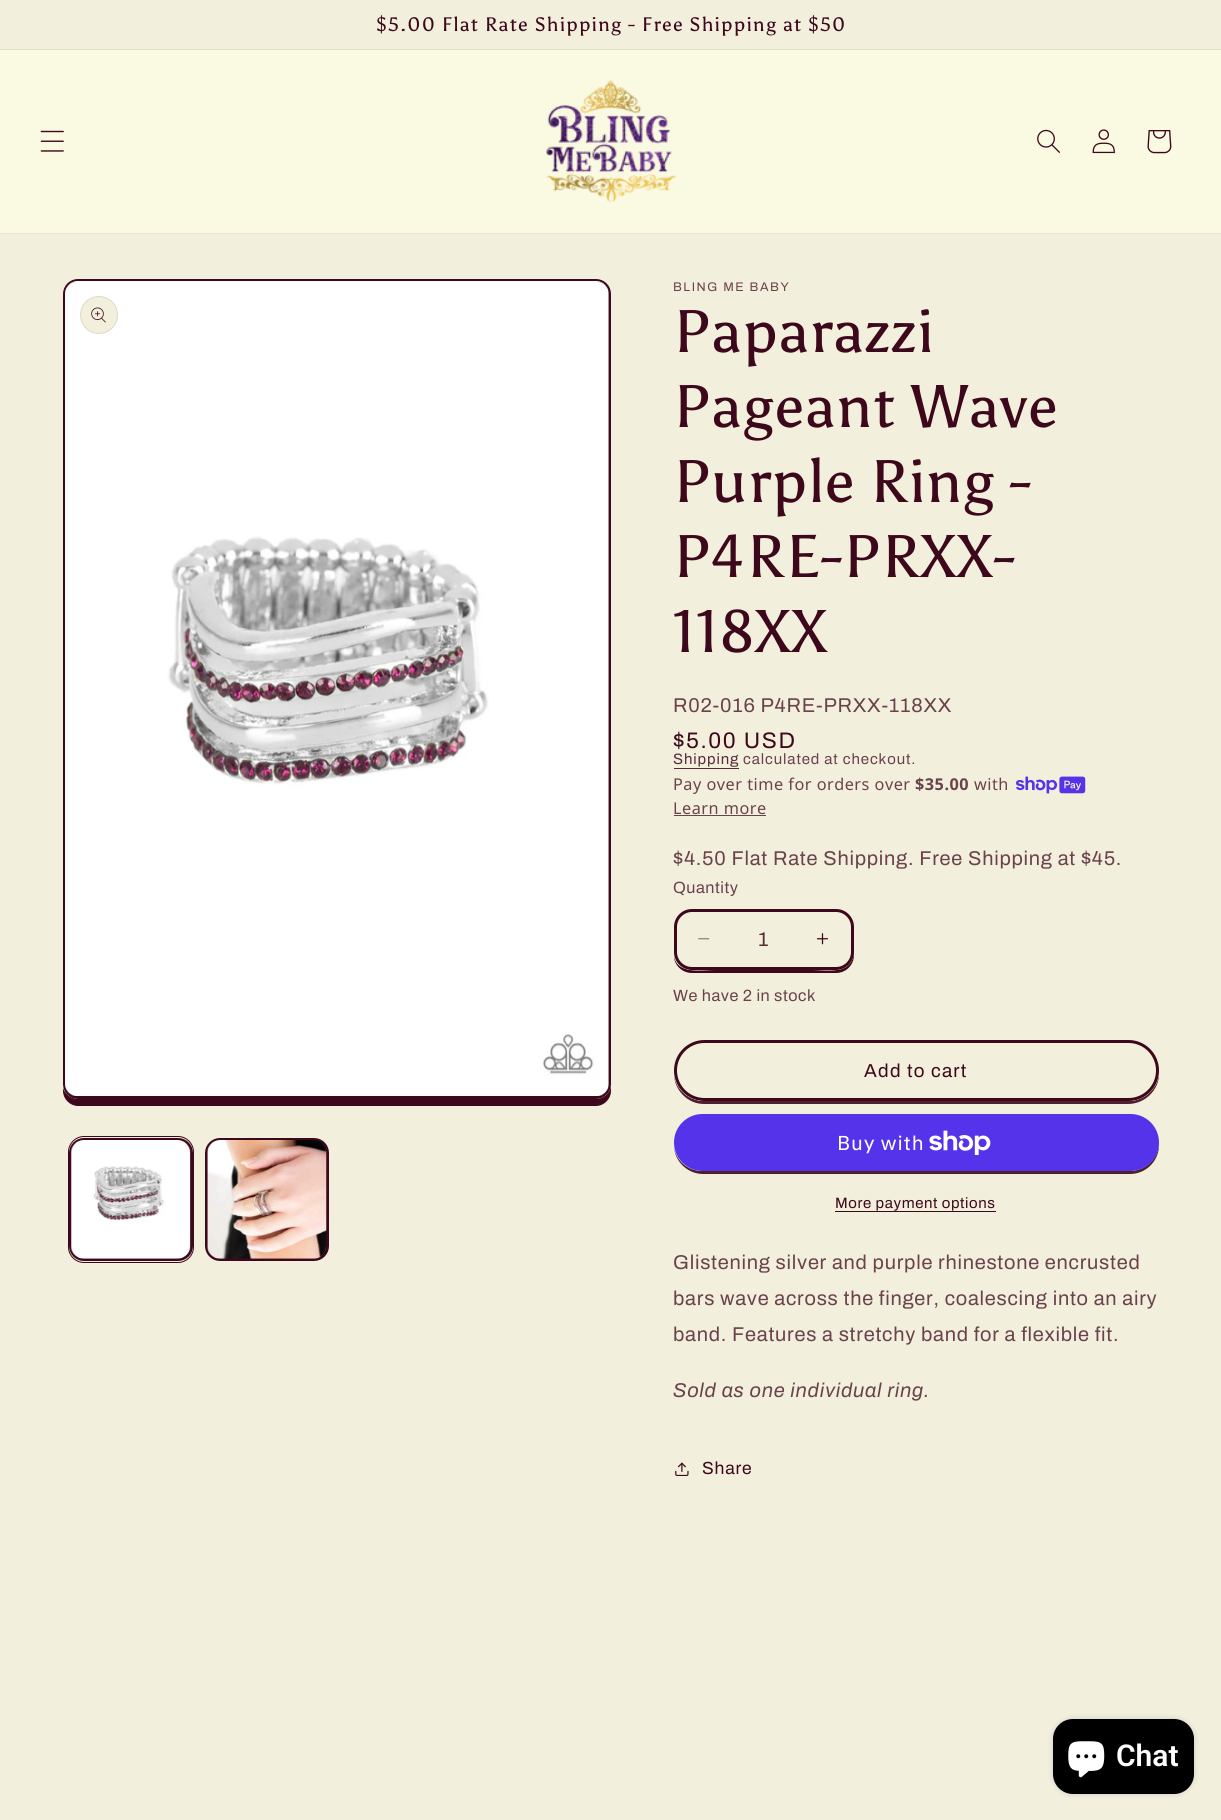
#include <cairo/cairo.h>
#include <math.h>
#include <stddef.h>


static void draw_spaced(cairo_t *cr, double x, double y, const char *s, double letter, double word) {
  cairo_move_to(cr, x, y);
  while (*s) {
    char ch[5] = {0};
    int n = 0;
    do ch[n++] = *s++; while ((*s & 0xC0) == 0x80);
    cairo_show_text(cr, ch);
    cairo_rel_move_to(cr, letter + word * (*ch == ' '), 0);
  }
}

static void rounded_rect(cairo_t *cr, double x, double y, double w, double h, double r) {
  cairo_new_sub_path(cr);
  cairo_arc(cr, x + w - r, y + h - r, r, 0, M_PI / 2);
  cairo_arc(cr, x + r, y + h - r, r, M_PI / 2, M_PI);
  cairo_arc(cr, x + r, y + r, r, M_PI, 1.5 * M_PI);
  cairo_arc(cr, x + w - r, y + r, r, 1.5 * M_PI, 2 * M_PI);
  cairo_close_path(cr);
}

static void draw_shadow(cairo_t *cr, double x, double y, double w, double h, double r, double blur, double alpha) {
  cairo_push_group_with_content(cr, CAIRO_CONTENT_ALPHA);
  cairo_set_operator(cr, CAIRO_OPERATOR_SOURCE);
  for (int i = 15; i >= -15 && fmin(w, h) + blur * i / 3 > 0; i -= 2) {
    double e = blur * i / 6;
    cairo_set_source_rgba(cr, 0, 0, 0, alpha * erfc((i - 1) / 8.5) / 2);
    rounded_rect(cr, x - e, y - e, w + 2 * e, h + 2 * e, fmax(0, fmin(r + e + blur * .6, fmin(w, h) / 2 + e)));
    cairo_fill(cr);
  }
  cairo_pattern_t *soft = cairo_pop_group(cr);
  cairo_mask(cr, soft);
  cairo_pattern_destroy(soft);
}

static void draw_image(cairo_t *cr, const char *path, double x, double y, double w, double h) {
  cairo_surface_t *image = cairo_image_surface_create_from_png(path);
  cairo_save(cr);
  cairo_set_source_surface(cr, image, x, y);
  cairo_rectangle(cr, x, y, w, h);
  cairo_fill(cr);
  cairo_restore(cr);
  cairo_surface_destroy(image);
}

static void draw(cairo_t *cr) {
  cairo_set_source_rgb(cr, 242 / 255.0, 239 / 255.0, 221 / 255.0);
  cairo_paint(cr);
  cairo_set_source_rgb(cr, 228 / 255.0, 221 / 255.0, 205 / 255.0);
  cairo_rectangle(cr, 0, 49, 1221, 1);
  cairo_fill(cr);
  cairo_set_source_rgb(cr, 250 / 255.0, 249 / 255.0, 225 / 255.0);
  cairo_rectangle(cr, 0, 50, 1221, 183);
  cairo_fill(cr);
  cairo_set_source_rgb(cr, 235 / 255.0, 230 / 255.0, 209 / 255.0);
  cairo_rectangle(cr, 0, 233, 1221, 1);
  cairo_fill(cr);
  draw_image(cr, "images/1.png", 40, 130, 24, 22);
  draw_image(cr, "images/2.png", 546, 80, 131, 123);
  draw_image(cr, "images/3.png", 1037, 129, 23, 24);
  draw_image(cr, "images/4.png", 1092, 129, 23, 25);
  draw_image(cr, "images/5.png", 1147, 130, 25, 24);
  cairo_set_source_rgb(cr, 61 / 255.0, 8 / 255.0, 27 / 255.0);
  cairo_new_path(cr);
  cairo_move_to(cr, 63, 1088);
  cairo_line_to(cr, 63, 1091);
  cairo_curve_to(cr, 63, 1099, 70, 1106, 78, 1106);
  cairo_line_to(cr, 596, 1106);
  cairo_curve_to(cr, 604, 1106, 611, 1099, 611, 1091);
  cairo_line_to(cr, 611, 1086);
  cairo_curve_to(cr, 610, 1093, 604, 1099, 596, 1099);
  cairo_line_to(cr, 78, 1099);
  cairo_curve_to(cr, 71, 1099, 65, 1094, 63, 1088);
  cairo_close_path(cr);
  cairo_fill(cr);
  rounded_rect(cr, 64.5, 280.5, 545, 817, 13.5);
  cairo_set_line_width(cr, 3);
  cairo_stroke(cr);
  draw_image(cr, "images/6.png", 65, 281, 544, 815);
  cairo_set_source_rgb(cr, 242 / 255.0, 239 / 255.0, 221 / 255.0);
  cairo_arc(cr, 99, 315, 19, 0, 2 * M_PI);
  cairo_fill(cr);
  cairo_arc(cr, 99, 315, 18.5, 0, 2 * M_PI);
  cairo_set_source_rgba(cr, 61 / 255.0, 8 / 255.0, 27 / 255.0, 0.1);
  cairo_set_line_width(cr, 1);
  cairo_stroke(cr);
  draw_image(cr, "images/7.png", 91, 307, 15, 16);
  rounded_rect(cr, 68.5, 1136.5, 125, 126, 15.5);
  cairo_set_source_rgb(cr, 61 / 255.0, 8 / 255.0, 27 / 255.0);
  cairo_stroke(cr);
  rounded_rect(cr, 70.5, 1139.5, 121, 120, 13.5);
  cairo_set_line_width(cr, 3);
  cairo_stroke(cr);
  draw_image(cr, "images/8.png", 71, 1140, 120, 119);
  rounded_rect(cr, 206.5, 1139.5, 121, 120, 13.5);
  cairo_stroke(cr);
  draw_image(cr, "images/9.png", 207, 1140, 120, 119);
  cairo_set_source_rgb(cr, 88 / 255.0, 43 / 255.0, 56 / 255.0);
  cairo_rectangle(cr, 674, 768, 65, 1);
  cairo_fill(cr);
  draw_image(cr, "images/10.png", 1016, 776, 70, 18);
  cairo_set_source_rgb(cr, 106 / 255.0, 66 / 255.0, 76 / 255.0);
  cairo_rectangle(cr, 674, 815, 92, 1);
  cairo_fill(cr);
  cairo_set_source_rgb(cr, 61 / 255.0, 8 / 255.0, 27 / 255.0);
  cairo_new_path(cr);
  cairo_move_to(cr, 674, 956);
  cairo_curve_to(cr, 674, 965, 682, 973, 692, 973);
  cairo_line_to(cr, 836, 973);
  cairo_curve_to(cr, 846, 973, 854, 965, 854, 955);
  cairo_line_to(cr, 854, 926);
  cairo_line_to(cr, 853, 956);
  cairo_curve_to(cr, 850, 975, 825, 970, 812, 970);
  cairo_line_to(cr, 715, 970);
  cairo_curve_to(cr, 702, 970, 677, 975, 674, 956);
  cairo_close_path(cr);
  cairo_fill(cr);
  cairo_set_source_rgb(cr, 242 / 255.0, 239 / 255.0, 221 / 255.0);
  rounded_rect(cr, 674, 909, 180, 61, 18);
  cairo_fill(cr);
  draw_image(cr, "images/11.png", 698, 938, 12, 2);
  draw_image(cr, "images/12.png", 816, 933, 13, 12);
  rounded_rect(cr, 675.5, 910.5, 177, 58, 16.5);
  cairo_set_source_rgb(cr, 61 / 255.0, 8 / 255.0, 27 / 255.0);
  cairo_stroke(cr);
  cairo_set_source_rgb(cr, 79 / 255.0, 31 / 255.0, 46 / 255.0);
  cairo_new_path(cr);
  cairo_move_to(cr, 674, 1075);
  cairo_curve_to(cr, 675, 1091, 688, 1104, 704, 1104);
  cairo_line_to(cr, 1128, 1104);
  cairo_curve_to(cr, 1145, 1104, 1159, 1090, 1159, 1074);
  cairo_line_to(cr, 1159, 1069);
  cairo_line_to(cr, 1159, 1071);
  cairo_curve_to(cr, 1159, 1088, 1145, 1101, 1128, 1101);
  cairo_line_to(cr, 704, 1101);
  cairo_curve_to(cr, 689, 1101, 676, 1090, 674, 1075);
  cairo_close_path(cr);
  cairo_fill(cr);
  cairo_set_source_rgb(cr, 242 / 255.0, 239 / 255.0, 221 / 255.0);
  rounded_rect(cr, 674, 1040, 485, 61, 30.5);
  cairo_fill(cr);
  rounded_rect(cr, 675.5, 1041.5, 482, 58, 29);
  cairo_stroke(cr);
  rounded_rect(cr, 675.5, 1041.5, 482, 58, 29);
  cairo_set_source_rgb(cr, 61 / 255.0, 8 / 255.0, 27 / 255.0);
  cairo_stroke(cr);
  cairo_set_source_rgb(cr, 79 / 255.0, 31 / 255.0, 46 / 255.0);
  cairo_new_path(cr);
  cairo_move_to(cr, 674, 1147);
  cairo_curve_to(cr, 675, 1162, 688, 1174, 703, 1174);
  cairo_line_to(cr, 1130, 1174);
  cairo_curve_to(cr, 1146, 1174, 1159, 1161, 1159, 1145);
  cairo_line_to(cr, 1159, 1141);
  cairo_line_to(cr, 1159, 1142);
  cairo_curve_to(cr, 1159, 1158, 1146, 1171, 1130, 1171);
  cairo_line_to(cr, 702, 1171);
  cairo_curve_to(cr, 688, 1171, 676, 1161, 674, 1147);
  cairo_close_path(cr);
  cairo_fill(cr);
  cairo_set_source_rgb(cr, 84 / 255.0, 51 / 255.0, 235 / 255.0);
  rounded_rect(cr, 674, 1114, 485, 57, 28.5);
  cairo_fill(cr);
  draw_image(cr, "images/13.png", 929, 1130, 62, 25);
  cairo_set_source_rgb(cr, 61 / 255.0, 8 / 255.0, 27 / 255.0);
  cairo_rectangle(cr, 835, 1211, 161, 1);
  cairo_fill(cr);
  draw_image(cr, "images/14.png", 675, 1462, 14, 14);
  cairo_set_source_rgb(cr, 0, 0, 0);
  draw_shadow(cr, 1053, 1719, 141, 75, 20, 3, 0.15);
  cairo_set_source_rgb(cr, 0, 0, 0);
  rounded_rect(cr, 1053, 1719, 141, 75, 20);
  cairo_fill(cr);
  draw_image(cr, "images/15.png", 1068, 1741, 37, 37);
  cairo_select_font_face(cr, "Asul", CAIRO_FONT_SLANT_NORMAL, CAIRO_FONT_WEIGHT_NORMAL);
  cairo_set_font_size(cr, 19.5);
  cairo_set_source_rgb(cr, 61 / 255.0, 8 / 255.0, 27 / 255.0);
  draw_spaced(cr, 376, 31, "$5.00 Flat Rate Shipping - Free Shipping at $50", 1.25, 0);
  cairo_select_font_face(cr, "Archivo", CAIRO_FONT_SLANT_NORMAL, CAIRO_FONT_WEIGHT_NORMAL);
  cairo_set_font_size(cr, 12.5);
  cairo_set_source_rgb(cr, 106 / 255.0, 66 / 255.0, 76 / 255.0);
  draw_spaced(cr, 673, 291, "BLING ME BABY", 1.6, 0);
  cairo_select_font_face(cr, "Asul", CAIRO_FONT_SLANT_NORMAL, CAIRO_FONT_WEIGHT_NORMAL);
  cairo_set_font_size(cr, 60);
  cairo_set_source_rgb(cr, 61 / 255.0, 8 / 255.0, 27 / 255.0);
  draw_spaced(cr, 673, 352, "Paparazzi", 0.9, 0);
  draw_spaced(cr, 673, 427, "Pageant Wave", 0.9, 0);
  draw_spaced(cr, 673, 502, "Purple Ring -", 0.9, 0);
  draw_spaced(cr, 673, 577, "P4RE-PRXX-", 0.9, 0);
  draw_spaced(cr, 673, 652, "118XX", 0.9, 0);
  cairo_select_font_face(cr, "Archivo", CAIRO_FONT_SLANT_NORMAL, CAIRO_FONT_WEIGHT_NORMAL);
  cairo_set_font_size(cr, 20);
  cairo_set_source_rgb(cr, 106 / 255.0, 66 / 255.0, 76 / 255.0);
  draw_spaced(cr, 673, 712, "R02-016 P4RE-PRXX-118XX", 0.75, 0);
  cairo_set_font_size(cr, 22.5);
  cairo_set_source_rgb(cr, 61 / 255.0, 8 / 255.0, 27 / 255.0);
  draw_spaced(cr, 673, 748, "$5.00 USD", 1.6, 0);
  cairo_set_font_size(cr, 15);
  cairo_set_source_rgb(cr, 88 / 255.0, 43 / 255.0, 56 / 255.0);
  draw_spaced(cr, 673, 764, "Shipping", 0.9, 0);
  cairo_set_source_rgb(cr, 106 / 255.0, 66 / 255.0, 76 / 255.0);
  draw_spaced(cr, 743, 764, "calculated at checkout.", 0.9, 0);
  cairo_select_font_face(cr, "Noto Sans", CAIRO_FONT_SLANT_NORMAL, CAIRO_FONT_WEIGHT_NORMAL);
  cairo_set_font_size(cr, 16.25);
  draw_spaced(cr, 673, 790, "Pay over time for orders over", 0.5, 0);
  cairo_select_font_face(cr, "Noto Sans", CAIRO_FONT_SLANT_NORMAL, CAIRO_FONT_WEIGHT_BOLD);
  draw_spaced(cr, 915, 790, "$35.00", 0.5, 0);
  cairo_select_font_face(cr, "Noto Sans", CAIRO_FONT_SLANT_NORMAL, CAIRO_FONT_WEIGHT_NORMAL);
  draw_spaced(cr, 974, 790, "with", 0.5, 0);
  draw_spaced(cr, 673, 814, "Learn more", 0.5, 0);
  cairo_select_font_face(cr, "Archivo", CAIRO_FONT_SLANT_NORMAL, CAIRO_FONT_WEIGHT_NORMAL);
  cairo_set_font_size(cr, 20);
  draw_spaced(cr, 673, 865, "$4.50 Flat Rate Shipping. Free Shipping at $45.", 0.75, 0);
  cairo_set_font_size(cr, 16.25);
  draw_spaced(cr, 673, 893, "Quantity", 0.5, 0);
  cairo_set_font_size(cr, 20);
  cairo_set_source_rgb(cr, 88 / 255.0, 43 / 255.0, 56 / 255.0);
  cairo_move_to(cr, 758, 946);
  cairo_show_text(cr, "1");
  cairo_set_font_size(cr, 16.25);
  cairo_set_source_rgb(cr, 106 / 255.0, 66 / 255.0, 76 / 255.0);
  draw_spaced(cr, 673, 1001, "We have 2 in stock", 0.5, 0);
  cairo_set_font_size(cr, 18.75);
  cairo_set_source_rgb(cr, 61 / 255.0, 8 / 255.0, 27 / 255.0);
  draw_spaced(cr, 864, 1077, "Add to cart", 1.25, 0);
  cairo_select_font_face(cr, "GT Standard", CAIRO_FONT_SLANT_NORMAL, CAIRO_FONT_WEIGHT_NORMAL);
  cairo_set_font_size(cr, 20);
  cairo_set_source_rgb(cr, 1, 1, 1);
  draw_spaced(cr, 837, 1150, "Buy with", 0.75, 0);
  cairo_select_font_face(cr, "Archivo", CAIRO_FONT_SLANT_NORMAL, CAIRO_FONT_WEIGHT_NORMAL);
  cairo_set_font_size(cr, 15);
  cairo_set_source_rgb(cr, 61 / 255.0, 8 / 255.0, 27 / 255.0);
  draw_spaced(cr, 835, 1208, "More payment options", 0.6, 0);
  cairo_set_font_size(cr, 20);
  cairo_set_source_rgb(cr, 106 / 255.0, 66 / 255.0, 76 / 255.0);
  draw_spaced(cr, 673, 1269, "Glistening silver and purple rhinestone encrusted", 0.75, 0);
  draw_spaced(cr, 673, 1305, "bars wave across the finger, coalescing into an airy", 0.75, 0);
  draw_spaced(cr, 673, 1341, "band. Features a stretchy band for a flexible fit.", 0.75, 0);
  cairo_select_font_face(cr, "Archivo", CAIRO_FONT_SLANT_ITALIC, CAIRO_FONT_WEIGHT_NORMAL);
  draw_spaced(cr, 673, 1397, "Sold as one individual ring.", 0.75, 0);
  cairo_select_font_face(cr, "Archivo", CAIRO_FONT_SLANT_NORMAL, CAIRO_FONT_WEIGHT_NORMAL);
  cairo_set_font_size(cr, 17.5);
  cairo_set_source_rgb(cr, 61 / 255.0, 8 / 255.0, 27 / 255.0);
  draw_spaced(cr, 702, 1474, "Share", 0.75, 0);
  cairo_select_font_face(cr, "Roboto SemiBold", CAIRO_FONT_SLANT_NORMAL, CAIRO_FONT_WEIGHT_NORMAL);
  cairo_set_font_size(cr, 30);
  cairo_set_source_rgb(cr, 1, 1, 1);
  cairo_move_to(cr, 1116, 1766);
  cairo_show_text(cr, "Chat");
}

int main(void) {
  cairo_surface_t *surface = cairo_image_surface_create(CAIRO_FORMAT_RGB24, 1221, 1820);
  cairo_t *cr = cairo_create(surface);
  cairo_font_options_t *options = cairo_font_options_create();
  cairo_font_options_set_hint_metrics(options, CAIRO_HINT_METRICS_OFF);
  cairo_font_options_set_hint_style(options, CAIRO_HINT_STYLE_NONE);
  cairo_set_font_options(cr, options);
  cairo_set_miter_limit(cr, 4);
  draw(cr);
  cairo_surface_write_to_png(surface, "out.png");
  cairo_font_options_destroy(options);
  cairo_destroy(cr);
  cairo_surface_destroy(surface);
  return 0;
}
